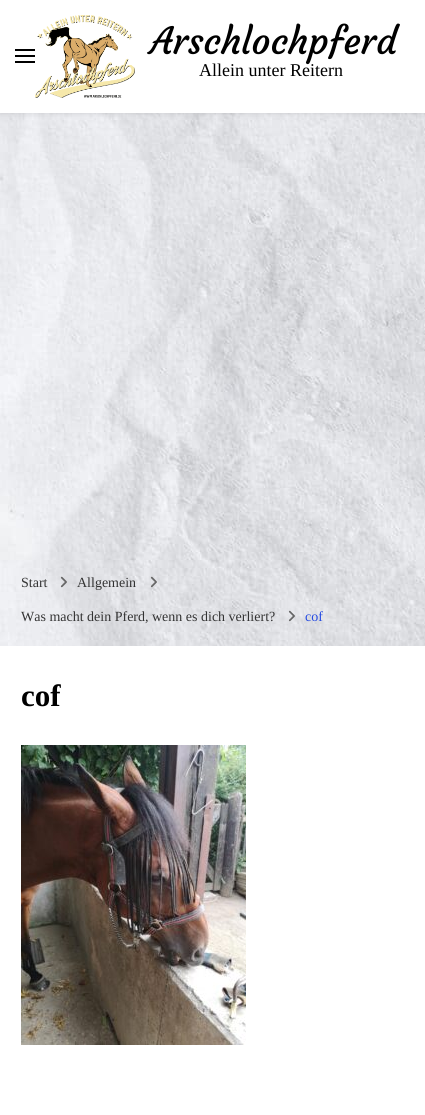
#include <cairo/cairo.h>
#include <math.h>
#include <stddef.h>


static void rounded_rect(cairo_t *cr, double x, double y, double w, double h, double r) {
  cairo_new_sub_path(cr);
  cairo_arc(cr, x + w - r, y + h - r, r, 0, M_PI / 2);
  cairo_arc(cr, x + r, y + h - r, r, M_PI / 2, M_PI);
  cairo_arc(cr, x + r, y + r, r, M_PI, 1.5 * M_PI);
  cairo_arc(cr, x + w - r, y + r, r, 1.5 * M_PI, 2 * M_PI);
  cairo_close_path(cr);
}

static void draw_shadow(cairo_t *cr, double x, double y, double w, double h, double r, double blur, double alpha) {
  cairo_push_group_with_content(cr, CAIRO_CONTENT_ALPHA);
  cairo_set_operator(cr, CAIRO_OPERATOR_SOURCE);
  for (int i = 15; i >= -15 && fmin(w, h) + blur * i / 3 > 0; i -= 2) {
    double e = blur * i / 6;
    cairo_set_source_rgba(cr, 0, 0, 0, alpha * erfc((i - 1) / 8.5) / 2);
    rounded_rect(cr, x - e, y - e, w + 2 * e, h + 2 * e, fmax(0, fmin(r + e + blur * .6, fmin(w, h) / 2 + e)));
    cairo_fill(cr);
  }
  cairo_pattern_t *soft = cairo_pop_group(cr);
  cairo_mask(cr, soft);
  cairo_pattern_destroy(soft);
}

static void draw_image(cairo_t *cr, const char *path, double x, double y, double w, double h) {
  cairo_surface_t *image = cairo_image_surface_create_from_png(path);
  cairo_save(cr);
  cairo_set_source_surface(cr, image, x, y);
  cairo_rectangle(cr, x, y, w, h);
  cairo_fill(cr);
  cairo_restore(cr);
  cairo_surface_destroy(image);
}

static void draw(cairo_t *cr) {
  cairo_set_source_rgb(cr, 1, 1, 1);
  cairo_paint(cr);
  draw_image(cr, "images/1.png", 0, 113, 425, 533);
  cairo_set_source_rgb(cr, 0, 0, 0);
  draw_shadow(cr, 0, 1, 425, 113, 0, 2.5, 0.1);
  cairo_set_source_rgb(cr, 1, 1, 1);
  cairo_rectangle(cr, 0, 0, 425, 113);
  cairo_fill(cr);
  cairo_set_source_rgb(cr, 0, 0, 0);
  cairo_rectangle(cr, 15, 49, 20, 2);
  cairo_fill(cr);
  cairo_rectangle(cr, 15, 55, 20, 2);
  cairo_fill(cr);
  cairo_rectangle(cr, 15, 61, 20, 2);
  cairo_fill(cr);
  draw_image(cr, "images/2.png", 35, 15, 100, 83);
  draw_image(cr, "images/3.png", 60, 576, 7, 12);
  draw_image(cr, "images/4.png", 150, 576, 7, 12);
  draw_image(cr, "images/5.png", 288, 610, 7, 12);
  draw_image(cr, "images/6.png", 21, 745, 225, 300);
  cairo_select_font_face(cr, "Courgette", CAIRO_FONT_SLANT_NORMAL, CAIRO_FONT_WEIGHT_NORMAL);
  cairo_set_font_size(cr, 37);
  cairo_move_to(cr, 150, 54);
  cairo_show_text(cr, "Arschlochpferd");
  cairo_select_font_face(cr, "Liberation Serif", CAIRO_FONT_SLANT_NORMAL, CAIRO_FONT_WEIGHT_NORMAL);
  cairo_set_font_size(cr, 18);
  cairo_move_to(cr, 199, 76);
  cairo_show_text(cr, "Allein unter Reitern");
  cairo_set_font_size(cr, 14);
  cairo_set_source_rgb(cr, 51 / 255.0, 51 / 255.0, 51 / 255.0);
  cairo_move_to(cr, 21, 587);
  cairo_show_text(cr, "Start");
  cairo_move_to(cr, 77, 587);
  cairo_show_text(cr, "Allgemein");
  cairo_move_to(cr, 21, 621);
  cairo_show_text(cr, "Was macht dein Pferd, wenn es dich verliert?");
  cairo_set_source_rgb(cr, 36 / 255.0, 74 / 255.0, 226 / 255.0);
  cairo_move_to(cr, 305, 621);
  cairo_show_text(cr, "cof");
  cairo_select_font_face(cr, "Liberation Serif", CAIRO_FONT_SLANT_NORMAL, CAIRO_FONT_WEIGHT_BOLD);
  cairo_set_font_size(cr, 31);
  cairo_set_source_rgb(cr, 0, 0, 0);
  cairo_move_to(cr, 21, 706);
  cairo_show_text(cr, "cof");
}

int main(void) {
  cairo_surface_t *surface = cairo_image_surface_create(CAIRO_FORMAT_RGB24, 425, 1115);
  cairo_t *cr = cairo_create(surface);
  cairo_font_options_t *options = cairo_font_options_create();
  cairo_font_options_set_hint_metrics(options, CAIRO_HINT_METRICS_OFF);
  cairo_font_options_set_hint_style(options, CAIRO_HINT_STYLE_NONE);
  cairo_set_font_options(cr, options);
  cairo_set_miter_limit(cr, 4);
  draw(cr);
  cairo_surface_write_to_png(surface, "out.png");
  cairo_font_options_destroy(options);
  cairo_destroy(cr);
  cairo_surface_destroy(surface);
  return 0;
}
